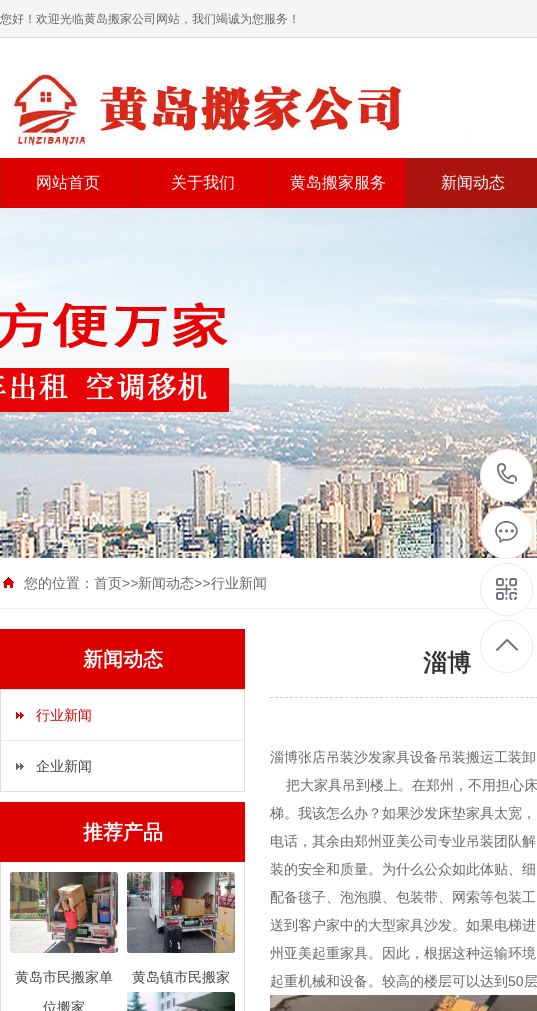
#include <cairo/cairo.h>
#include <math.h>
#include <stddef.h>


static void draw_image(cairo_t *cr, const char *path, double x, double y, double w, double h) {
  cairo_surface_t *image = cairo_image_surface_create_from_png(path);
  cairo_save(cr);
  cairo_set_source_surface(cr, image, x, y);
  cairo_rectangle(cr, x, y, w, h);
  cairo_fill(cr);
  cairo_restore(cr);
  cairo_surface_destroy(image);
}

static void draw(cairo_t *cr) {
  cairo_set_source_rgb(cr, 1, 1, 1);
  cairo_paint(cr);
  cairo_set_source_rgb(cr, 245 / 255.0, 245 / 255.0, 245 / 255.0);
  cairo_rectangle(cr, 0, 0, 537, 37);
  cairo_fill(cr);
  cairo_set_source_rgb(cr, 221 / 255.0, 221 / 255.0, 221 / 255.0);
  cairo_rectangle(cr, 0, 37, 537, 1);
  cairo_fill(cr);
  draw_image(cr, "images/1.png", 0, 58, 480, 100);
  cairo_set_source_rgb(cr, 220 / 255.0, 0, 0);
  cairo_rectangle(cr, 1, 158, 404, 50);
  cairo_fill(cr);
  cairo_set_source_rgb(cr, 172 / 255.0, 20 / 255.0, 15 / 255.0);
  cairo_rectangle(cr, 135, 158, 1, 50);
  cairo_fill(cr);
  cairo_rectangle(cr, 0, 158, 1, 50);
  cairo_fill(cr);
  cairo_rectangle(cr, 270, 158, 1, 50);
  cairo_fill(cr);
  cairo_rectangle(cr, 405, 158, 132, 50);
  cairo_fill(cr);
  draw_image(cr, "images/2.png", 0, 208, 537, 350);
  cairo_set_source_rgb(cr, 1, 1, 1);
  cairo_arc(cr, 506.5, 475.5, 26, 0, 2 * M_PI);
  cairo_fill_preserve(cr);
  cairo_set_source_rgb(cr, 235 / 255.0, 235 / 255.0, 235 / 255.0);
  cairo_set_line_width(cr, 1);
  cairo_stroke(cr);
  draw_image(cr, "images/3.png", 497, 463, 20, 21);
  cairo_set_source_rgb(cr, 1, 1, 1);
  cairo_arc(cr, 506.5, 532.5, 26, 0, 2 * M_PI);
  cairo_fill_preserve(cr);
  cairo_set_source_rgb(cr, 235 / 255.0, 235 / 255.0, 235 / 255.0);
  cairo_stroke(cr);
  draw_image(cr, "images/4.png", 495, 521, 23, 22);
  cairo_set_source_rgb(cr, 241 / 255.0, 241 / 255.0, 241 / 255.0);
  cairo_rectangle(cr, 0, 608, 537, 1);
  cairo_fill(cr);
  cairo_set_source_rgb(cr, 1, 1, 1);
  cairo_arc(cr, 506.5, 589.5, 26, 0, 2 * M_PI);
  cairo_fill_preserve(cr);
  cairo_set_source_rgb(cr, 235 / 255.0, 235 / 255.0, 235 / 255.0);
  cairo_stroke(cr);
  draw_image(cr, "images/5.png", 496, 578, 21, 22);
  cairo_arc(cr, 506.5, 646.5, 26, 0, 2 * M_PI);
  cairo_stroke(cr);
  draw_image(cr, "images/6.png", 496, 639, 22, 12);
  draw_image(cr, "images/7.png", 3, 577, 11, 11);
  cairo_set_source_rgb(cr, 220 / 255.0, 0, 0);
  cairo_rectangle(cr, 0, 629, 245, 60);
  cairo_fill(cr);
  cairo_set_source_rgb(cr, 221 / 255.0, 221 / 255.0, 221 / 255.0);
  cairo_rectangle(cr, 244, 689, 1, 103);
  cairo_fill(cr);
  cairo_rectangle(cr, 0, 791, 245, 1);
  cairo_fill(cr);
  cairo_rectangle(cr, 0, 689, 1, 103);
  cairo_fill(cr);
  draw_image(cr, "images/8.png", 16, 712, 8, 7);
  cairo_set_source_rgb(cr, 234 / 255.0, 234 / 255.0, 234 / 255.0);
  cairo_rectangle(cr, 1, 689, 243, 1);
  cairo_fill(cr);
  draw_image(cr, "images/9.png", 16, 763, 8, 7);
  cairo_rectangle(cr, 1, 740, 243, 1);
  cairo_fill(cr);
  cairo_set_source_rgb(cr, 220 / 255.0, 0, 0);
  cairo_rectangle(cr, 0, 802, 245, 60);
  cairo_fill(cr);
  cairo_set_source_rgb(cr, 221 / 255.0, 221 / 255.0, 221 / 255.0);
  cairo_rectangle(cr, 244, 862, 1, 149);
  cairo_fill(cr);
  cairo_rectangle(cr, 0, 862, 1, 149);
  cairo_fill(cr);
  draw_image(cr, "images/10.png", 10, 872, 108, 81);
  draw_image(cr, "images/11.png", 127, 872, 108, 81);
  draw_image(cr, "images/12.png", 127, 992, 108, 19);
  cairo_new_path(cr);
  cairo_move_to(cr, 270, 697.5);
  cairo_line_to(cr, 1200, 697.5);
  cairo_set_source_rgb(cr, 204 / 255.0, 204 / 255.0, 204 / 255.0);
  cairo_set_dash(cr, (double[]){3, 2.01}, 2, 0);
  cairo_stroke(cr);
  draw_image(cr, "images/13.png", 270, 995, 267, 16);
  cairo_select_font_face(cr, "WenQuanYi Zen Hei Medium", CAIRO_FONT_SLANT_NORMAL, CAIRO_FONT_WEIGHT_NORMAL);
  cairo_set_font_size(cr, 12);
  cairo_set_source_rgb(cr, 102 / 255.0, 102 / 255.0, 102 / 255.0);
  cairo_move_to(cr, 0, 23);
  cairo_show_text(cr, "您好！欢迎光临黄岛搬家公司网站，我们竭诚为您服务！");
  cairo_set_font_size(cr, 16);
  cairo_set_source_rgb(cr, 1, 1, 1);
  cairo_move_to(cr, 36, 188);
  cairo_show_text(cr, "网站首页");
  cairo_move_to(cr, 171, 188);
  cairo_show_text(cr, "关于我们");
  cairo_move_to(cr, 290, 188);
  cairo_show_text(cr, "黄岛搬家服务");
  cairo_move_to(cr, 441, 188);
  cairo_show_text(cr, "新闻动态");
  cairo_set_font_size(cr, 14);
  cairo_set_source_rgb(cr, 102 / 255.0, 102 / 255.0, 102 / 255.0);
  cairo_move_to(cr, 24, 588);
  cairo_show_text(cr, "您的位置：首页");
  cairo_select_font_face(cr, "Liberation Sans", CAIRO_FONT_SLANT_NORMAL, CAIRO_FONT_WEIGHT_NORMAL);
  cairo_move_to(cr, 122, 588);
  cairo_show_text(cr, ">>");
  cairo_select_font_face(cr, "WenQuanYi Zen Hei Medium", CAIRO_FONT_SLANT_NORMAL, CAIRO_FONT_WEIGHT_NORMAL);
  cairo_move_to(cr, 138, 588);
  cairo_show_text(cr, "新闻动态");
  cairo_select_font_face(cr, "Liberation Sans", CAIRO_FONT_SLANT_NORMAL, CAIRO_FONT_WEIGHT_NORMAL);
  cairo_move_to(cr, 194, 588);
  cairo_show_text(cr, ">>");
  cairo_select_font_face(cr, "WenQuanYi Zen Hei Medium", CAIRO_FONT_SLANT_NORMAL, CAIRO_FONT_WEIGHT_NORMAL);
  cairo_move_to(cr, 211, 588);
  cairo_show_text(cr, "行业新闻");
  cairo_select_font_face(cr, "WenQuanYi Zen Hei", CAIRO_FONT_SLANT_NORMAL, CAIRO_FONT_WEIGHT_BOLD);
  cairo_set_font_size(cr, 20);
  cairo_set_source_rgb(cr, 1, 1, 1);
  cairo_move_to(cr, 83, 666);
  cairo_show_text(cr, "新闻动态");
  cairo_select_font_face(cr, "WenQuanYi Zen Hei Medium", CAIRO_FONT_SLANT_NORMAL, CAIRO_FONT_WEIGHT_NORMAL);
  cairo_set_font_size(cr, 14);
  cairo_set_source_rgb(cr, 220 / 255.0, 0, 0);
  cairo_move_to(cr, 36, 720);
  cairo_show_text(cr, "行业新闻");
  cairo_set_source_rgb(cr, 67 / 255.0, 67 / 255.0, 67 / 255.0);
  cairo_move_to(cr, 36, 771);
  cairo_show_text(cr, "企业新闻");
  cairo_select_font_face(cr, "WenQuanYi Zen Hei", CAIRO_FONT_SLANT_NORMAL, CAIRO_FONT_WEIGHT_BOLD);
  cairo_set_font_size(cr, 20);
  cairo_set_source_rgb(cr, 1, 1, 1);
  cairo_move_to(cr, 83, 839);
  cairo_show_text(cr, "推荐产品");
  cairo_select_font_face(cr, "WenQuanYi Zen Hei Medium", CAIRO_FONT_SLANT_NORMAL, CAIRO_FONT_WEIGHT_NORMAL);
  cairo_set_font_size(cr, 14);
  cairo_set_source_rgb(cr, 67 / 255.0, 67 / 255.0, 67 / 255.0);
  cairo_move_to(cr, 15, 982);
  cairo_show_text(cr, "黄岛市民搬家单");
  cairo_move_to(cr, 43, 1012);
  cairo_show_text(cr, "位搬家");
  cairo_move_to(cr, 132, 982);
  cairo_show_text(cr, "黄岛镇市民搬家");
  cairo_select_font_face(cr, "WenQuanYi Zen Hei", CAIRO_FONT_SLANT_NORMAL, CAIRO_FONT_WEIGHT_BOLD);
  cairo_set_font_size(cr, 24);
  cairo_set_source_rgb(cr, 51 / 255.0, 51 / 255.0, 51 / 255.0);
  cairo_move_to(cr, 423, 671);
  cairo_show_text(cr, "淄博");
  cairo_select_font_face(cr, "WenQuanYi Zen Hei Medium", CAIRO_FONT_SLANT_NORMAL, CAIRO_FONT_WEIGHT_NORMAL);
  cairo_set_font_size(cr, 14);
  cairo_set_source_rgb(cr, 102 / 255.0, 102 / 255.0, 102 / 255.0);
  cairo_move_to(cr, 270, 762);
  cairo_show_text(cr, "淄博张店吊装沙发家具设备吊装搬运工装卸");
  cairo_move_to(cr, 286, 790);
  cairo_show_text(cr, "把大家具吊到楼上。在郑州，不用担心床");
  cairo_move_to(cr, 270, 818);
  cairo_show_text(cr, "梯。我该怎么办？如果沙发床垫家具太宽，");
  cairo_move_to(cr, 270, 846);
  cairo_show_text(cr, "电话，其余由郑州亚美公司专业吊装团队解");
  cairo_move_to(cr, 270, 874);
  cairo_show_text(cr, "装的安全和质量。为什么公众如此体贴、细");
  cairo_move_to(cr, 270, 902);
  cairo_show_text(cr, "配备毯子、泡泡膜、包装带、网索等包装工");
  cairo_move_to(cr, 270, 930);
  cairo_show_text(cr, "送到客户家中的大型家具沙发。如果电梯进");
  cairo_move_to(cr, 270, 958);
  cairo_show_text(cr, "州亚美起重家具。因此，根据这种运输环境");
  cairo_move_to(cr, 270, 986);
  cairo_show_text(cr, "起重机械和设备。较高的楼层可以达到");
  cairo_select_font_face(cr, "Liberation Sans", CAIRO_FONT_SLANT_NORMAL, CAIRO_FONT_WEIGHT_NORMAL);
  cairo_move_to(cr, 508, 986);
  cairo_show_text(cr, "50");
  cairo_select_font_face(cr, "WenQuanYi Zen Hei Medium", CAIRO_FONT_SLANT_NORMAL, CAIRO_FONT_WEIGHT_NORMAL);
  cairo_move_to(cr, 524, 986);
  cairo_show_text(cr, "层");
}

int main(void) {
  cairo_surface_t *surface = cairo_image_surface_create(CAIRO_FORMAT_RGB24, 537, 1011);
  cairo_t *cr = cairo_create(surface);
  cairo_font_options_t *options = cairo_font_options_create();
  cairo_font_options_set_hint_metrics(options, CAIRO_HINT_METRICS_OFF);
  cairo_font_options_set_hint_style(options, CAIRO_HINT_STYLE_NONE);
  cairo_set_font_options(cr, options);
  cairo_set_miter_limit(cr, 4);
  draw(cr);
  cairo_surface_write_to_png(surface, "out.png");
  cairo_font_options_destroy(options);
  cairo_destroy(cr);
  cairo_surface_destroy(surface);
  return 0;
}
